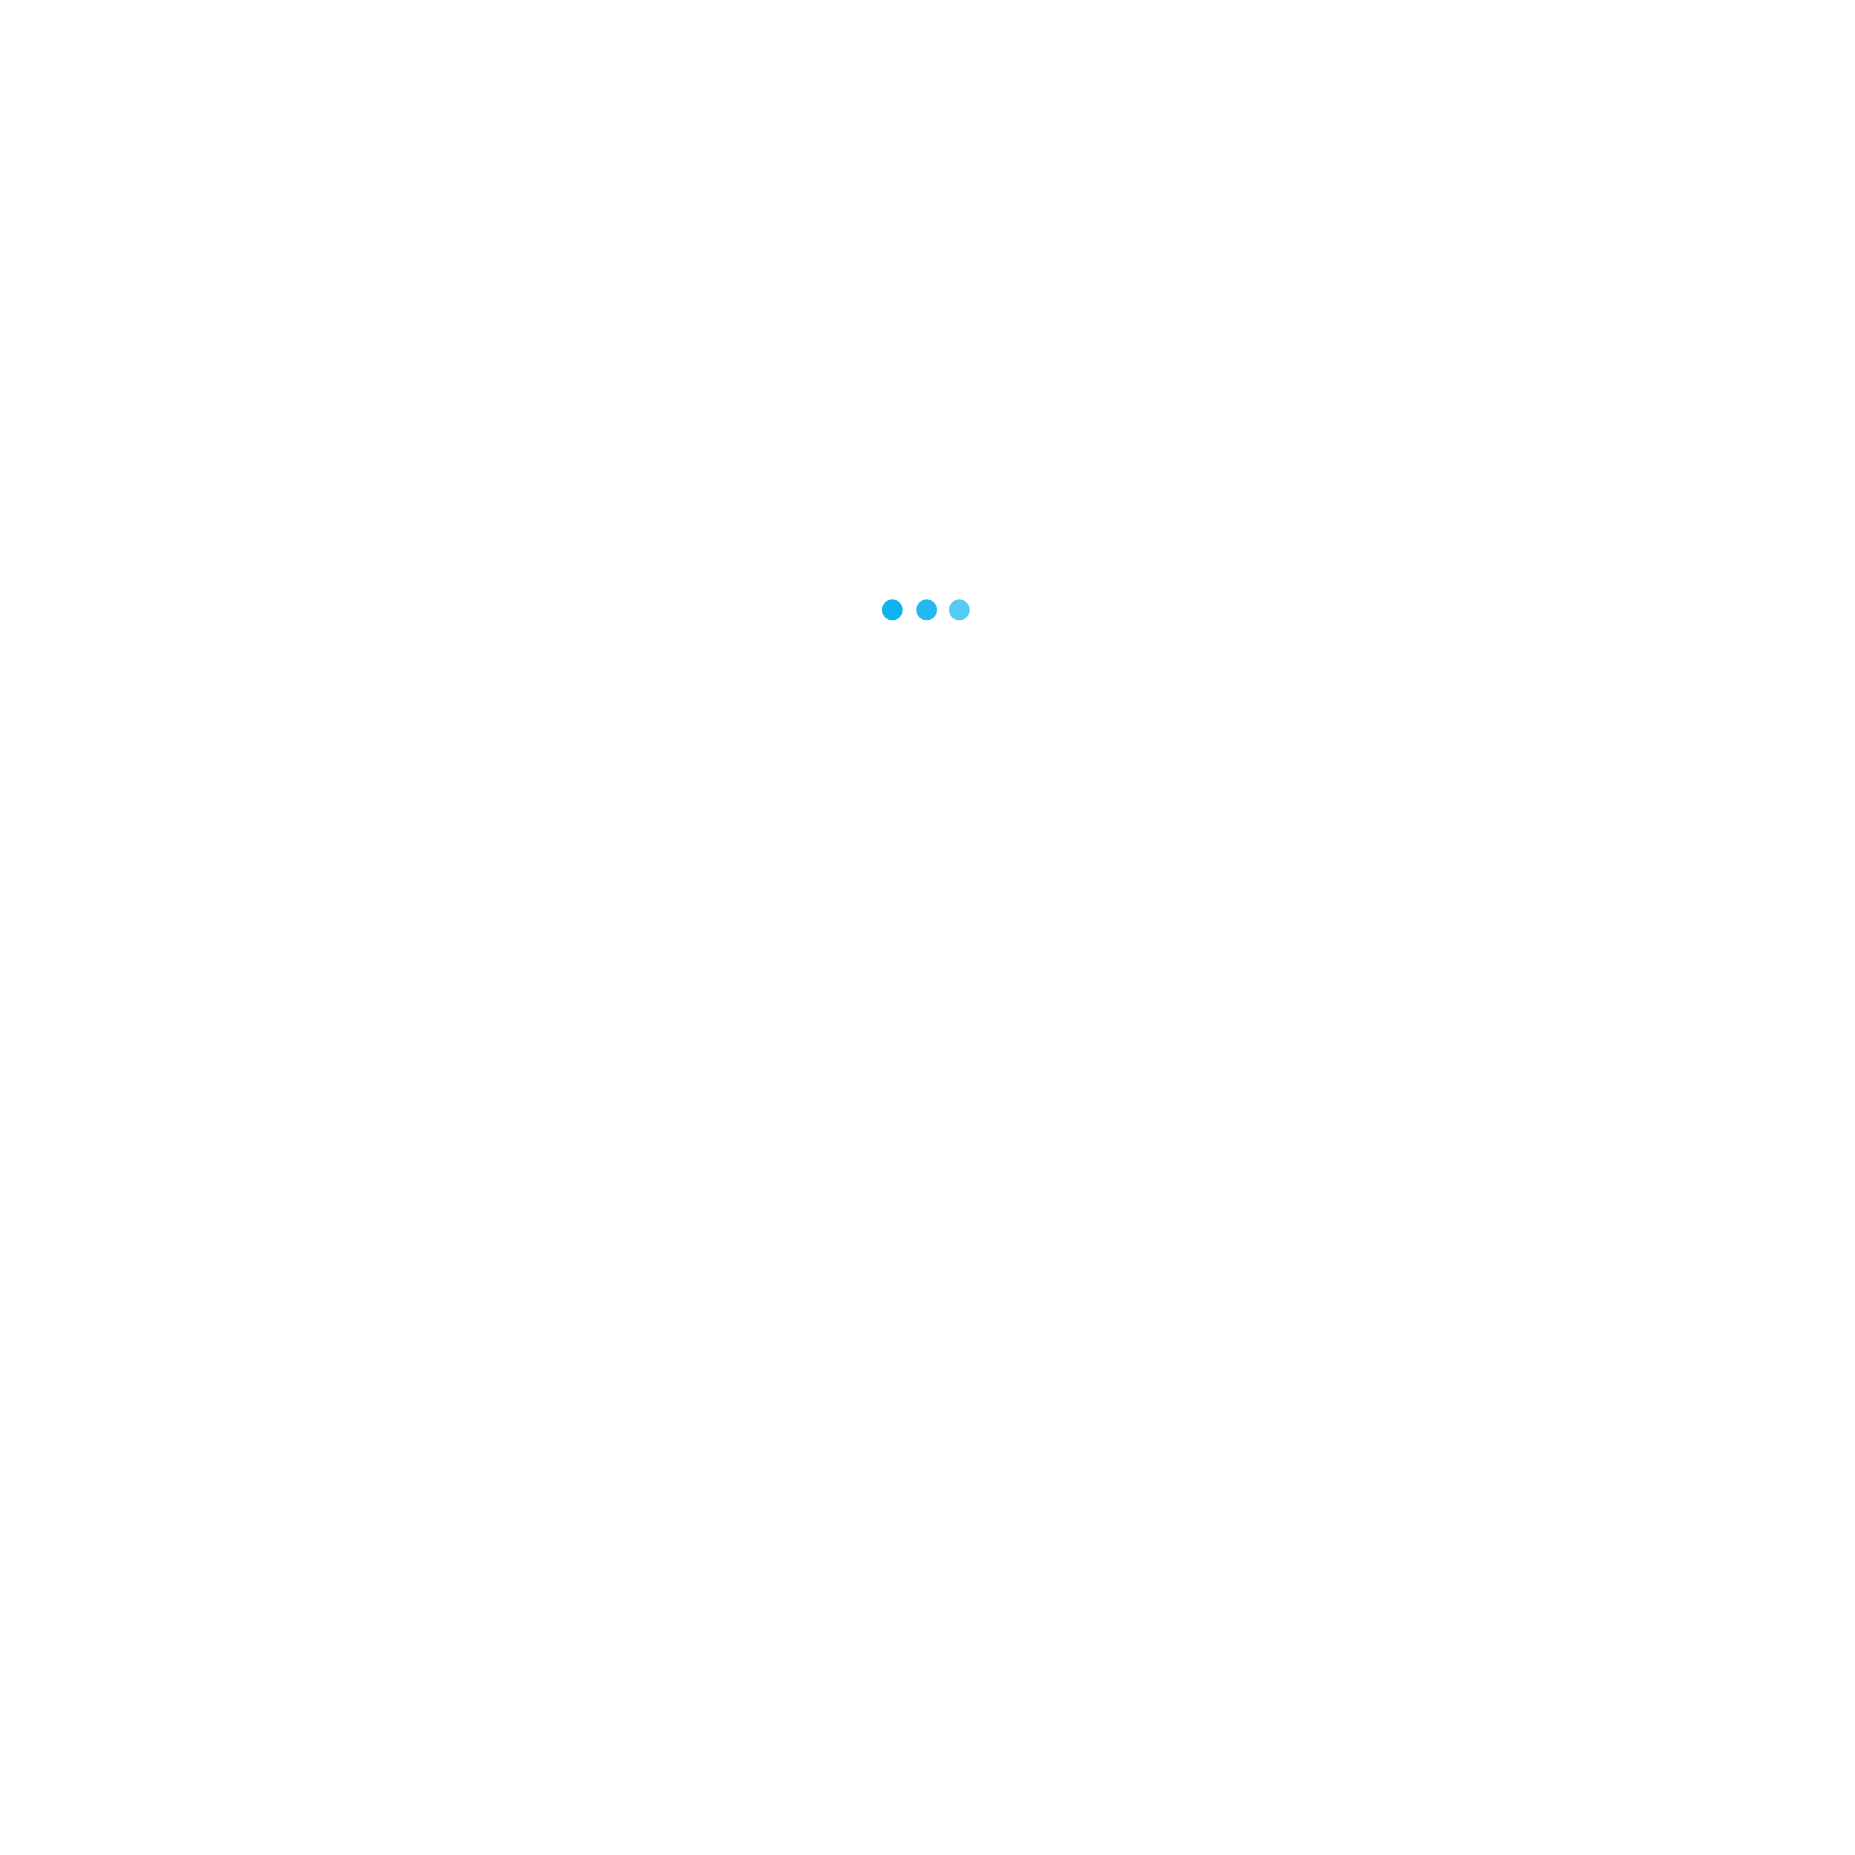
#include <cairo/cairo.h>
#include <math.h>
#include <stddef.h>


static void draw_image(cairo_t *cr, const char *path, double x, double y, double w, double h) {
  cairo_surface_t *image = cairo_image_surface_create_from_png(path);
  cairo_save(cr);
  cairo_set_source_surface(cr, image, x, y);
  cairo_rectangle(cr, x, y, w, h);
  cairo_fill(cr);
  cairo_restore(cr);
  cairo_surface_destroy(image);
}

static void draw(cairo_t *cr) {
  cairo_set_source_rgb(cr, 1, 1, 1);
  cairo_paint(cr);
  draw_image(cr, "images/1.png", 881, 599, 89, 22);
}

int main(void) {
  cairo_surface_t *surface = cairo_image_surface_create(CAIRO_FORMAT_RGB24, 1855, 1855);
  cairo_t *cr = cairo_create(surface);
  cairo_font_options_t *options = cairo_font_options_create();
  cairo_font_options_set_hint_metrics(options, CAIRO_HINT_METRICS_OFF);
  cairo_font_options_set_hint_style(options, CAIRO_HINT_STYLE_NONE);
  cairo_set_font_options(cr, options);
  cairo_set_miter_limit(cr, 4);
  draw(cr);
  cairo_surface_write_to_png(surface, "out.png");
  cairo_font_options_destroy(options);
  cairo_destroy(cr);
  cairo_surface_destroy(surface);
  return 0;
}
